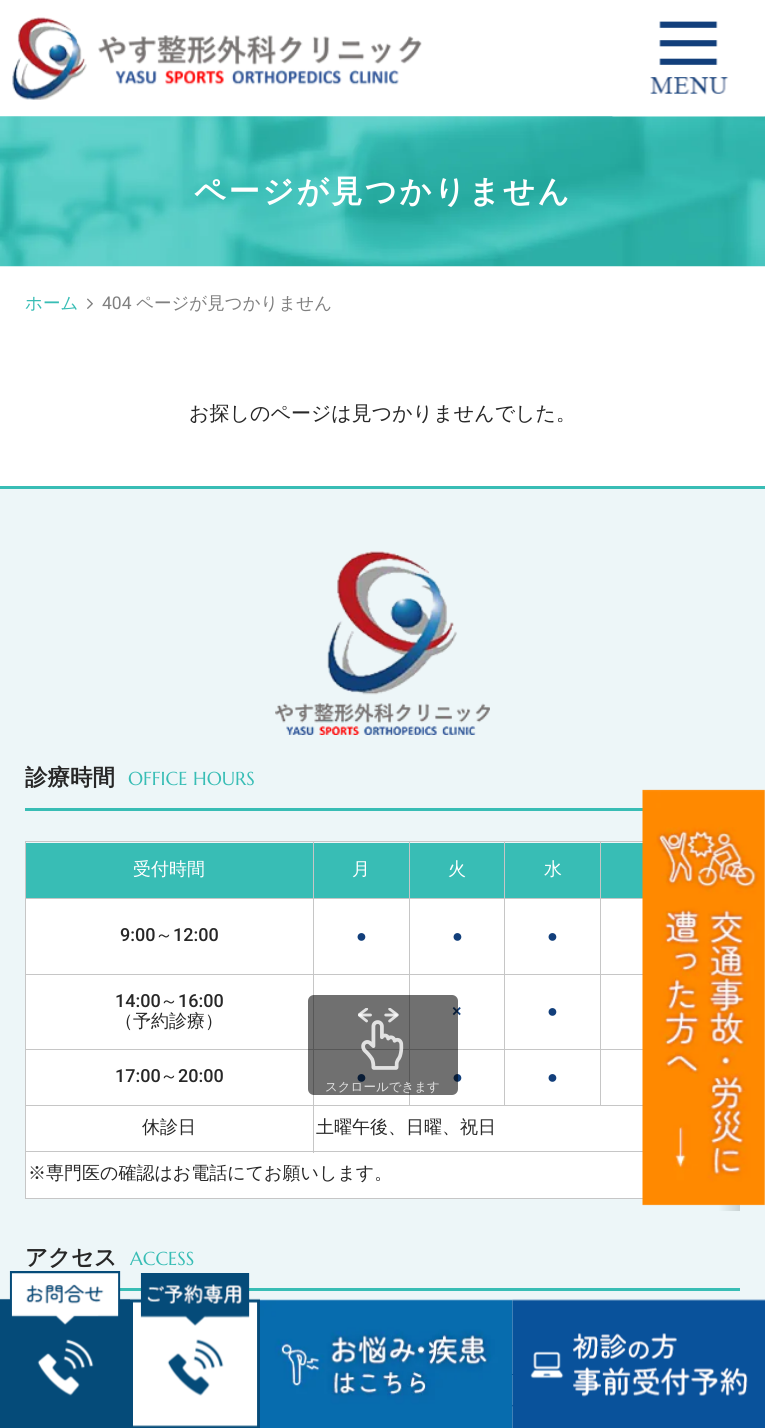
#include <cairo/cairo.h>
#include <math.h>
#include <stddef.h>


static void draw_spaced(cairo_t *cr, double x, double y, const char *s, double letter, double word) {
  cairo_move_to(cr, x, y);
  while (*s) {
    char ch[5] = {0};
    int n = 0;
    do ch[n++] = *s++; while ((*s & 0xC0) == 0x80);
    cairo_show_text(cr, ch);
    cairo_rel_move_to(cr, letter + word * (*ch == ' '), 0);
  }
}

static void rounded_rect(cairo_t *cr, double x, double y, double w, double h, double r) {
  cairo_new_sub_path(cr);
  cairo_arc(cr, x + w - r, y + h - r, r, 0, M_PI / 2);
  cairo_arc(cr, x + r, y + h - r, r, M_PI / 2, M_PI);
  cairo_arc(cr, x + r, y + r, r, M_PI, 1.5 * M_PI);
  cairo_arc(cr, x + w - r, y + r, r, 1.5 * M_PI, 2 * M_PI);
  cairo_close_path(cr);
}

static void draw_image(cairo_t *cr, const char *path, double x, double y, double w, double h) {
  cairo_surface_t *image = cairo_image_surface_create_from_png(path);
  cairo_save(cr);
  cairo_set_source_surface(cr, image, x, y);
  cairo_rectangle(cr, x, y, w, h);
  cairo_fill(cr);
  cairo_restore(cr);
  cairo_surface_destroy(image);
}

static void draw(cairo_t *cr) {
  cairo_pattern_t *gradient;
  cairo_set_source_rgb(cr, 1, 1, 1);
  cairo_paint(cr);
  draw_image(cr, "images/1.png", 12, 17, 410, 83);
  draw_image(cr, "images/3.png", 0, 116, 765, 151);
  draw_image(cr, "images/2.png", 612, 21, 153, 96);
  draw_image(cr, "images/4.png", 87, 298, 6, 11);
  cairo_set_source_rgb(cr, 237 / 255.0, 246 / 255.0, 248 / 255.0);
  cairo_rectangle(cr, 0, 489, 765, 939);
  cairo_fill(cr);
  cairo_set_source_rgb(cr, 56 / 255.0, 189 / 255.0, 181 / 255.0);
  cairo_rectangle(cr, 0, 486, 765, 3);
  cairo_fill(cr);
  draw_image(cr, "images/5.png", 275, 551, 215, 184);
  cairo_rectangle(cr, 25, 808, 618, 3);
  cairo_fill(cr);
  gradient = cairo_pattern_create_linear(740, 1026, 25, 1026);
  cairo_pattern_add_color_stop_rgba(gradient, 0, 201 / 255.0, 210 / 255.0, 211 / 255.0, 1);
  cairo_pattern_add_color_stop_rgba(gradient, 0.03, 236 / 255.0, 247 / 255.0, 248 / 255.0, 1);
  cairo_pattern_add_color_stop_rgba(gradient, 1, 236 / 255.0, 247 / 255.0, 248 / 255.0, 1);
  cairo_set_source(cr, gradient);
  cairo_pattern_destroy(gradient);
  cairo_rectangle(cr, 719, 842, 21, 369);
  cairo_fill(cr);
  cairo_set_source_rgb(cr, 56 / 255.0, 189 / 255.0, 181 / 255.0);
  cairo_rectangle(cr, 26, 843, 287, 55);
  cairo_fill(cr);
  cairo_set_source_rgb(cr, 198 / 255.0, 198 / 255.0, 198 / 255.0);
  cairo_rectangle(cr, 600, 841, 43, 1);
  cairo_fill(cr);
  cairo_rectangle(cr, 600, 898, 43, 1);
  cairo_fill(cr);
  cairo_rectangle(cr, 600, 974, 43, 1);
  cairo_fill(cr);
  cairo_rectangle(cr, 600, 1049, 43, 1);
  cairo_fill(cr);
  cairo_rectangle(cr, 313, 1105, 330, 1);
  cairo_fill(cr);
  cairo_rectangle(cr, 600, 1049, 1, 57);
  cairo_fill(cr);
  cairo_rectangle(cr, 504, 1049, 97, 1);
  cairo_fill(cr);
  cairo_rectangle(cr, 600, 974, 1, 76);
  cairo_fill(cr);
  cairo_rectangle(cr, 504, 974, 97, 1);
  cairo_fill(cr);
  cairo_rectangle(cr, 600, 898, 1, 77);
  cairo_fill(cr);
  cairo_rectangle(cr, 504, 898, 97, 1);
  cairo_fill(cr);
  cairo_rectangle(cr, 600, 841, 1, 58);
  cairo_fill(cr);
  cairo_rectangle(cr, 504, 841, 97, 1);
  cairo_fill(cr);
  cairo_rectangle(cr, 504, 1049, 1, 57);
  cairo_fill(cr);
  cairo_rectangle(cr, 409, 1049, 96, 1);
  cairo_fill(cr);
  cairo_rectangle(cr, 504, 974, 1, 76);
  cairo_fill(cr);
  cairo_rectangle(cr, 409, 974, 96, 1);
  cairo_fill(cr);
  cairo_rectangle(cr, 504, 898, 1, 77);
  cairo_fill(cr);
  cairo_rectangle(cr, 409, 898, 96, 1);
  cairo_fill(cr);
  cairo_rectangle(cr, 504, 841, 1, 58);
  cairo_fill(cr);
  cairo_rectangle(cr, 409, 841, 96, 1);
  cairo_fill(cr);
  cairo_rectangle(cr, 409, 1049, 1, 57);
  cairo_fill(cr);
  cairo_rectangle(cr, 313, 1049, 97, 1);
  cairo_fill(cr);
  cairo_rectangle(cr, 409, 974, 1, 76);
  cairo_fill(cr);
  cairo_rectangle(cr, 313, 974, 97, 1);
  cairo_fill(cr);
  cairo_rectangle(cr, 409, 898, 1, 77);
  cairo_fill(cr);
  cairo_rectangle(cr, 313, 898, 97, 1);
  cairo_fill(cr);
  cairo_rectangle(cr, 409, 841, 1, 58);
  cairo_fill(cr);
  cairo_rectangle(cr, 313, 841, 97, 1);
  cairo_fill(cr);
  cairo_set_source_rgb(cr, 1, 1, 1);
  cairo_rectangle(cr, 26, 1152, 617, 46);
  cairo_fill(cr);
  cairo_set_source_rgb(cr, 198 / 255.0, 198 / 255.0, 198 / 255.0);
  cairo_rectangle(cr, 25, 1151, 618, 1);
  cairo_fill(cr);
  cairo_rectangle(cr, 313, 1105, 1, 48);
  cairo_fill(cr);
  cairo_rectangle(cr, 25, 1105, 289, 1);
  cairo_fill(cr);
  cairo_rectangle(cr, 313, 1049, 1, 57);
  cairo_fill(cr);
  cairo_rectangle(cr, 25, 1049, 289, 1);
  cairo_fill(cr);
  cairo_rectangle(cr, 313, 974, 1, 76);
  cairo_fill(cr);
  cairo_rectangle(cr, 25, 974, 289, 1);
  cairo_fill(cr);
  cairo_rectangle(cr, 313, 898, 1, 77);
  cairo_fill(cr);
  cairo_rectangle(cr, 25, 898, 289, 1);
  cairo_fill(cr);
  cairo_rectangle(cr, 313, 841, 1, 58);
  cairo_fill(cr);
  cairo_rectangle(cr, 25, 841, 289, 1);
  cairo_fill(cr);
  cairo_rectangle(cr, 25, 1198, 618, 1);
  cairo_fill(cr);
  cairo_rectangle(cr, 25, 1151, 1, 48);
  cairo_fill(cr);
  cairo_rectangle(cr, 25, 1105, 1, 48);
  cairo_fill(cr);
  cairo_rectangle(cr, 25, 1049, 1, 57);
  cairo_fill(cr);
  cairo_rectangle(cr, 25, 974, 1, 76);
  cairo_fill(cr);
  cairo_rectangle(cr, 25, 898, 1, 77);
  cairo_fill(cr);
  cairo_rectangle(cr, 25, 841, 1, 58);
  cairo_fill(cr);
  cairo_set_source_rgb(cr, 56 / 255.0, 189 / 255.0, 181 / 255.0);
  cairo_rectangle(cr, 314, 843, 95, 55);
  cairo_fill(cr);
  cairo_rectangle(cr, 410, 843, 94, 55);
  cairo_fill(cr);
  cairo_rectangle(cr, 505, 843, 95, 55);
  cairo_fill(cr);
  cairo_rectangle(cr, 601, 843, 42, 55);
  cairo_fill(cr);
  cairo_set_source_rgb(cr, 1, 1, 1);
  cairo_rectangle(cr, 26, 899, 287, 75);
  cairo_fill(cr);
  cairo_rectangle(cr, 314, 899, 95, 75);
  cairo_fill(cr);
  cairo_rectangle(cr, 410, 899, 94, 75);
  cairo_fill(cr);
  cairo_rectangle(cr, 505, 899, 95, 75);
  cairo_fill(cr);
  cairo_rectangle(cr, 601, 899, 42, 75);
  cairo_fill(cr);
  cairo_rectangle(cr, 26, 975, 287, 74);
  cairo_fill(cr);
  cairo_rectangle(cr, 314, 975, 95, 74);
  cairo_fill(cr);
  cairo_rectangle(cr, 410, 975, 94, 74);
  cairo_fill(cr);
  cairo_rectangle(cr, 505, 975, 95, 74);
  cairo_fill(cr);
  cairo_rectangle(cr, 601, 975, 42, 74);
  cairo_fill(cr);
  cairo_rectangle(cr, 26, 1050, 287, 55);
  cairo_fill(cr);
  cairo_rectangle(cr, 314, 1050, 95, 55);
  cairo_fill(cr);
  cairo_rectangle(cr, 410, 1050, 94, 55);
  cairo_fill(cr);
  cairo_rectangle(cr, 505, 1050, 95, 55);
  cairo_fill(cr);
  cairo_rectangle(cr, 601, 1050, 42, 55);
  cairo_fill(cr);
  cairo_rectangle(cr, 26, 1106, 287, 45);
  cairo_fill(cr);
  cairo_rectangle(cr, 314, 1106, 329, 45);
  cairo_fill(cr);
  cairo_set_source_rgb(cr, 56 / 255.0, 189 / 255.0, 181 / 255.0);
  cairo_rectangle(cr, 120, 1288, 620, 3);
  cairo_fill(cr);
  cairo_rectangle(cr, 199.5, 1374.5, 368, 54);
  cairo_set_source_rgb(cr, 18 / 255.0, 63 / 255.0, 123 / 255.0);
  cairo_set_line_width(cr, 1);
  cairo_stroke(cr);
  draw_image(cr, "images/8.png", 512, 1404, 1, 3);
  draw_image(cr, "images/9.png", 642, 789, 123, 417);
  draw_image(cr, "images/10.png", 0, 1271, 130, 157);
  draw_image(cr, "images/11.png", 130, 1273, 130, 155);
  draw_image(cr, "images/12.png", 260, 1299, 253, 129);
  draw_image(cr, "images/13.png", 512, 1299, 253, 129);
  cairo_select_font_face(cr, "WenQuanYi Zen Hei", CAIRO_FONT_SLANT_NORMAL, CAIRO_FONT_WEIGHT_BOLD);
  cairo_set_font_size(cr, 31.25);
  cairo_set_source_rgb(cr, 1, 1, 1);
  draw_spaced(cr, 194, 202, "ページが見つかりません", 2.5, 0);
  cairo_select_font_face(cr, "WenQuanYi Zen Hei Medium", CAIRO_FONT_SLANT_NORMAL, CAIRO_FONT_WEIGHT_NORMAL);
  cairo_set_font_size(cr, 17.5);
  cairo_set_source_rgb(cr, 56 / 255.0, 189 / 255.0, 181 / 255.0);
  cairo_move_to(cr, 25, 309);
  cairo_show_text(cr, "ホーム");
  cairo_select_font_face(cr, "Roboto", CAIRO_FONT_SLANT_NORMAL, CAIRO_FONT_WEIGHT_NORMAL);
  cairo_set_source_rgb(cr, 128 / 255.0, 128 / 255.0, 128 / 255.0);
  cairo_move_to(cr, 102, 309);
  cairo_show_text(cr, "404");
  cairo_select_font_face(cr, "WenQuanYi Zen Hei Medium", CAIRO_FONT_SLANT_NORMAL, CAIRO_FONT_WEIGHT_NORMAL);
  cairo_move_to(cr, 136, 309);
  cairo_show_text(cr, "ページが見つかりません");
  cairo_set_font_size(cr, 20);
  cairo_set_source_rgb(cr, 39 / 255.0, 39 / 255.0, 39 / 255.0);
  cairo_move_to(cr, 189, 420);
  cairo_show_text(cr, "お探しのページは見つかりませんでした。");
  cairo_select_font_face(cr, "WenQuanYi Zen Hei", CAIRO_FONT_SLANT_NORMAL, CAIRO_FONT_WEIGHT_BOLD);
  cairo_set_font_size(cr, 22.5);
  cairo_move_to(cr, 25, 785);
  cairo_show_text(cr, "診療時間");
  cairo_select_font_face(cr, "Marcellus SC", CAIRO_FONT_SLANT_NORMAL, CAIRO_FONT_WEIGHT_NORMAL);
  cairo_set_font_size(cr, 18.75);
  cairo_set_source_rgb(cr, 56 / 255.0, 189 / 255.0, 181 / 255.0);
  cairo_move_to(cr, 128, 785);
  cairo_show_text(cr, "OFFICE HOURS");
  cairo_select_font_face(cr, "WenQuanYi Zen Hei Medium", CAIRO_FONT_SLANT_NORMAL, CAIRO_FONT_WEIGHT_NORMAL);
  cairo_set_font_size(cr, 18);
  cairo_set_source_rgb(cr, 1, 1, 1);
  cairo_move_to(cr, 133, 875);
  cairo_show_text(cr, "受付時間");
  cairo_move_to(cr, 352, 875);
  cairo_show_text(cr, "月");
  cairo_move_to(cr, 448, 875);
  cairo_show_text(cr, "火");
  cairo_move_to(cr, 544, 875);
  cairo_show_text(cr, "水");
  cairo_select_font_face(cr, "Roboto Medium", CAIRO_FONT_SLANT_NORMAL, CAIRO_FONT_WEIGHT_NORMAL);
  cairo_set_source_rgb(cr, 39 / 255.0, 39 / 255.0, 39 / 255.0);
  cairo_move_to(cr, 120, 941);
  cairo_show_text(cr, "9:00");
  cairo_select_font_face(cr, "WenQuanYi Zen Hei Medium", CAIRO_FONT_SLANT_NORMAL, CAIRO_FONT_WEIGHT_NORMAL);
  cairo_move_to(cr, 155, 941);
  cairo_show_text(cr, "～");
  cairo_select_font_face(cr, "Roboto Medium", CAIRO_FONT_SLANT_NORMAL, CAIRO_FONT_WEIGHT_NORMAL);
  cairo_move_to(cr, 173, 941);
  cairo_show_text(cr, "12:00");
  cairo_select_font_face(cr, "Liberation Sans", CAIRO_FONT_SLANT_NORMAL, CAIRO_FONT_WEIGHT_NORMAL);
  cairo_set_source_rgb(cr, 18 / 255.0, 63 / 255.0, 123 / 255.0);
  cairo_move_to(cr, 356, 942);
  cairo_show_text(cr, "●");
  cairo_move_to(cr, 452, 942);
  cairo_show_text(cr, "●");
  cairo_move_to(cr, 547, 942);
  cairo_show_text(cr, "●");
  cairo_select_font_face(cr, "Roboto Medium", CAIRO_FONT_SLANT_NORMAL, CAIRO_FONT_WEIGHT_NORMAL);
  cairo_set_source_rgb(cr, 39 / 255.0, 39 / 255.0, 39 / 255.0);
  cairo_move_to(cr, 115, 1007);
  cairo_show_text(cr, "14:00");
  cairo_select_font_face(cr, "WenQuanYi Zen Hei Medium", CAIRO_FONT_SLANT_NORMAL, CAIRO_FONT_WEIGHT_NORMAL);
  cairo_move_to(cr, 160, 1007);
  cairo_show_text(cr, "～");
  cairo_select_font_face(cr, "Roboto Medium", CAIRO_FONT_SLANT_NORMAL, CAIRO_FONT_WEIGHT_NORMAL);
  cairo_move_to(cr, 178, 1007);
  cairo_show_text(cr, "16:00");
  cairo_select_font_face(cr, "WenQuanYi Zen Hei Medium", CAIRO_FONT_SLANT_NORMAL, CAIRO_FONT_WEIGHT_NORMAL);
  cairo_move_to(cr, 115, 1027);
  cairo_show_text(cr, "（予約診療）");
  cairo_select_font_face(cr, "Roboto Medium", CAIRO_FONT_SLANT_NORMAL, CAIRO_FONT_WEIGHT_NORMAL);
  cairo_set_source_rgb(cr, 18 / 255.0, 63 / 255.0, 123 / 255.0);
  cairo_move_to(cr, 452, 1017);
  cairo_show_text(cr, "×");
  cairo_select_font_face(cr, "Liberation Sans", CAIRO_FONT_SLANT_NORMAL, CAIRO_FONT_WEIGHT_NORMAL);
  cairo_move_to(cr, 547, 1017);
  cairo_show_text(cr, "●");
  cairo_select_font_face(cr, "Roboto Medium", CAIRO_FONT_SLANT_NORMAL, CAIRO_FONT_WEIGHT_NORMAL);
  cairo_set_source_rgb(cr, 39 / 255.0, 39 / 255.0, 39 / 255.0);
  cairo_move_to(cr, 115, 1082);
  cairo_show_text(cr, "17:00");
  cairo_select_font_face(cr, "WenQuanYi Zen Hei Medium", CAIRO_FONT_SLANT_NORMAL, CAIRO_FONT_WEIGHT_NORMAL);
  cairo_move_to(cr, 160, 1082);
  cairo_show_text(cr, "～");
  cairo_select_font_face(cr, "Roboto Medium", CAIRO_FONT_SLANT_NORMAL, CAIRO_FONT_WEIGHT_NORMAL);
  cairo_move_to(cr, 178, 1082);
  cairo_show_text(cr, "20:00");
  cairo_select_font_face(cr, "Liberation Sans", CAIRO_FONT_SLANT_NORMAL, CAIRO_FONT_WEIGHT_NORMAL);
  cairo_set_source_rgb(cr, 18 / 255.0, 63 / 255.0, 123 / 255.0);
  cairo_move_to(cr, 356, 1083);
  cairo_show_text(cr, "●");
  cairo_move_to(cr, 452, 1083);
  cairo_show_text(cr, "●");
  cairo_move_to(cr, 547, 1083);
  cairo_show_text(cr, "●");
  cairo_select_font_face(cr, "WenQuanYi Zen Hei Medium", CAIRO_FONT_SLANT_NORMAL, CAIRO_FONT_WEIGHT_NORMAL);
  cairo_set_source_rgb(cr, 39 / 255.0, 39 / 255.0, 39 / 255.0);
  cairo_move_to(cr, 142, 1133);
  cairo_show_text(cr, "休診日");
  cairo_move_to(cr, 316, 1133);
  cairo_show_text(cr, "土曜午後、日曜、祝日");
  cairo_move_to(cr, 28, 1179);
  cairo_show_text(cr, "※専門医の確認はお電話にてお願いします。");
  cairo_set_source_rgba(cr, 0, 0, 0, 0.56);
  rounded_rect(cr, 308, 995, 150, 100, 6);
  cairo_fill(cr);
  draw_image(cr, "images/7.png", 361, 1020, 43, 50);
  draw_image(cr, "images/6.png", 358, 1008, 41, 15);
  cairo_set_font_size(cr, 12.5);
  cairo_set_source_rgb(cr, 226 / 255.0, 226 / 255.0, 226 / 255.0);
  cairo_move_to(cr, 325, 1091);
  cairo_show_text(cr, "スクロールできます");
  cairo_select_font_face(cr, "WenQuanYi Zen Hei", CAIRO_FONT_SLANT_NORMAL, CAIRO_FONT_WEIGHT_BOLD);
  cairo_set_font_size(cr, 22.5);
  cairo_set_source_rgb(cr, 39 / 255.0, 39 / 255.0, 39 / 255.0);
  cairo_move_to(cr, 25, 1265);
  cairo_show_text(cr, "アクセス");
  cairo_select_font_face(cr, "Marcellus SC", CAIRO_FONT_SLANT_NORMAL, CAIRO_FONT_WEIGHT_NORMAL);
  cairo_set_font_size(cr, 18.75);
  cairo_set_source_rgb(cr, 56 / 255.0, 189 / 255.0, 181 / 255.0);
  cairo_move_to(cr, 130, 1265);
  cairo_show_text(cr, "ACCESS");
}

int main(void) {
  cairo_surface_t *surface = cairo_image_surface_create(CAIRO_FORMAT_RGB24, 765, 1428);
  cairo_t *cr = cairo_create(surface);
  cairo_font_options_t *options = cairo_font_options_create();
  cairo_font_options_set_hint_metrics(options, CAIRO_HINT_METRICS_OFF);
  cairo_font_options_set_hint_style(options, CAIRO_HINT_STYLE_NONE);
  cairo_set_font_options(cr, options);
  cairo_set_miter_limit(cr, 4);
  draw(cr);
  cairo_surface_write_to_png(surface, "out.png");
  cairo_font_options_destroy(options);
  cairo_destroy(cr);
  cairo_surface_destroy(surface);
  return 0;
}
